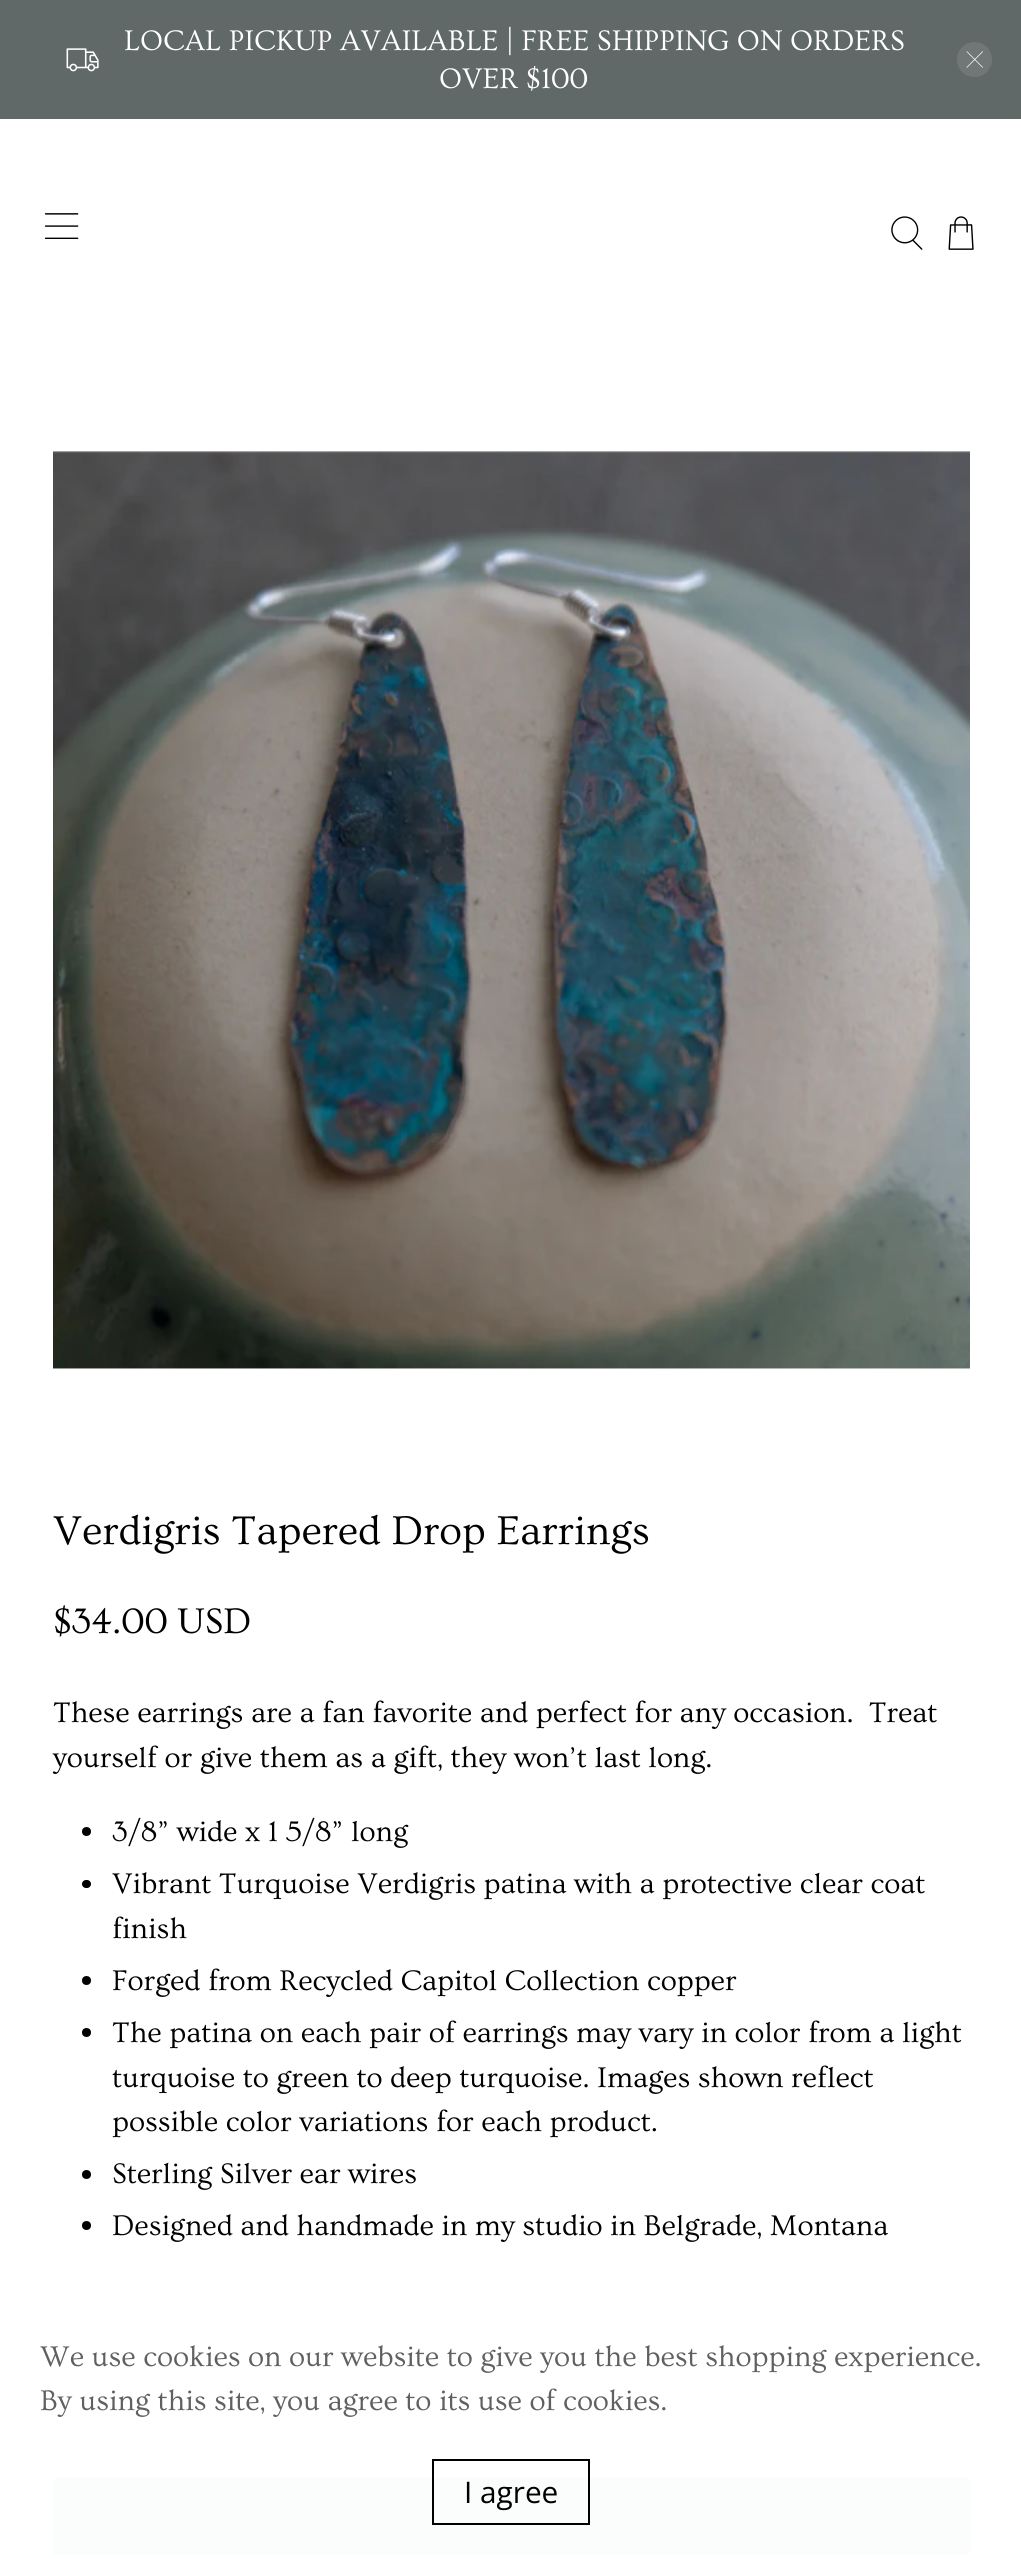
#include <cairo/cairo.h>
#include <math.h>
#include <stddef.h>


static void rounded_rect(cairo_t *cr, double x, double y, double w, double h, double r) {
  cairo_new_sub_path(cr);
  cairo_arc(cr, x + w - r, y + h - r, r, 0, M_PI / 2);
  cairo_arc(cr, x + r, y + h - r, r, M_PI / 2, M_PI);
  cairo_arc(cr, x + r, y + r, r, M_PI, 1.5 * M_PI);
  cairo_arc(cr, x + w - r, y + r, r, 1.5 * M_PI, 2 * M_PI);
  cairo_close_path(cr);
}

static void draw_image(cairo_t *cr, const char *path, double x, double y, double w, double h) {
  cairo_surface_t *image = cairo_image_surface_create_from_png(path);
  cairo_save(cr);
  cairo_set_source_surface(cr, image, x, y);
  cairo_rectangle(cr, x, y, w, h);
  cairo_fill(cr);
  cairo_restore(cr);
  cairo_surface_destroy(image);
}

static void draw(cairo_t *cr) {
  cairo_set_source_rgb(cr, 1, 1, 1);
  cairo_paint(cr);
  cairo_set_source_rgb(cr, 97 / 255.0, 104 / 255.0, 104 / 255.0);
  cairo_rectangle(cr, 0, 0, 1021, 119);
  cairo_fill(cr);
  draw_image(cr, "images/1.png", 66, 48, 33, 24);
  cairo_set_source_rgb(cr, 113 / 255.0, 119 / 255.0, 119 / 255.0);
  cairo_arc(cr, 974.5, 59.5, 17.5, 0, 2 * M_PI);
  cairo_fill(cr);
  draw_image(cr, "images/2.png", 966, 51, 17, 17);
  draw_image(cr, "images/3.png", 44, 213, 35, 26);
  draw_image(cr, "images/4.png", 891, 216, 32, 34);
  draw_image(cr, "images/5.png", 948, 216, 26, 34);
  draw_image(cr, "images/6.png", 53, 451, 917, 918);
  cairo_set_source_rgb(cr, 0, 0, 0);
  cairo_arc(cr, 86.5, 1831.5, 4.5, 0, 2 * M_PI);
  cairo_fill(cr);
  rounded_rect(cr, 82, 1880, 9, 8, 4);
  cairo_fill(cr);
  cairo_arc(cr, 86.5, 1980.5, 4.5, 0, 2 * M_PI);
  cairo_fill(cr);
  cairo_arc(cr, 86.5, 2032.5, 4.5, 0, 2 * M_PI);
  cairo_fill(cr);
  cairo_arc(cr, 86.5, 2174.5, 4.5, 0, 2 * M_PI);
  cairo_fill(cr);
  cairo_arc(cr, 86.5, 2225.5, 4.5, 0, 2 * M_PI);
  cairo_fill(cr);
  cairo_set_source_rgb(cr, 194 / 255.0, 222 / 255.0, 219 / 255.0);
  rounded_rect(cr, 53, 2478, 917, 77, 4);
  cairo_fill(cr);
  cairo_set_source_rgba(cr, 1, 1, 1, 0.93);
  cairo_rectangle(cr, 53, 2478, 917, 77);
  cairo_fill(cr);
  cairo_rectangle(cr, 433, 2460, 156, 64);
  cairo_set_source_rgb(cr, 0, 0, 0);
  cairo_stroke(cr);
  cairo_select_font_face(cr, "Ovo", CAIRO_FONT_SLANT_NORMAL, CAIRO_FONT_WEIGHT_NORMAL);
  cairo_set_font_size(cr, 29.75);
  cairo_set_source_rgb(cr, 1, 1, 1);
  cairo_move_to(cr, 124, 50);
  cairo_show_text(cr, "LOCAL PICKUP AVAILABLE | FREE SHIPPING ON ORDERS");
  cairo_move_to(cr, 439, 88);
  cairo_show_text(cr, "OVER $100");
  cairo_set_font_size(cr, 42);
  cairo_set_source_rgb(cr, 0, 0, 0);
  cairo_move_to(cr, 53, 1544);
  cairo_show_text(cr, "Verdigris Tapered Drop Earrings");
  cairo_set_font_size(cr, 37.25);
  cairo_move_to(cr, 53, 1633);
  cairo_show_text(cr, "$34.00 USD");
  cairo_set_font_size(cr, 29.75);
  cairo_move_to(cr, 53, 1722);
  cairo_show_text(cr, "These earrings are a fan favorite and perfect for any occasion.  Treat");
  cairo_move_to(cr, 53, 1767);
  cairo_show_text(cr, "yourself or give them as a gift, they won’t last long.");
  cairo_move_to(cr, 112, 1841);
  cairo_show_text(cr, "3/8” wide x 1 5/8” long");
  cairo_move_to(cr, 112, 1893);
  cairo_show_text(cr, "Vibrant Turquoise Verdigris patina with a protective clear coat");
  cairo_move_to(cr, 112, 1938);
  cairo_show_text(cr, "finish");
  cairo_move_to(cr, 112, 1990);
  cairo_show_text(cr, "Forged from Recycled Capitol Collection copper");
  cairo_move_to(cr, 112, 2042);
  cairo_show_text(cr, "The patina on each pair of earrings may vary in color from a light");
  cairo_move_to(cr, 112, 2087);
  cairo_show_text(cr, "turquoise to green to deep turquoise. Images shown reflect");
  cairo_move_to(cr, 112, 2131);
  cairo_show_text(cr, "possible color variations for each product.");
  cairo_move_to(cr, 112, 2183);
  cairo_show_text(cr, "Sterling Silver ear wires");
  cairo_move_to(cr, 112, 2235);
  cairo_show_text(cr, "Designed and handmade in my studio in Belgrade, Montana");
  cairo_set_source_rgb(cr, 96 / 255.0, 96 / 255.0, 96 / 255.0);
  cairo_move_to(cr, 40, 2366);
  cairo_show_text(cr, "We use cookies on our website to give you the best shopping experience.");
  cairo_move_to(cr, 40, 2410);
  cairo_show_text(cr, "By using this site, you agree to its use of cookies.");
  cairo_select_font_face(cr, "Open Sans", CAIRO_FONT_SLANT_NORMAL, CAIRO_FONT_WEIGHT_NORMAL);
  cairo_set_source_rgb(cr, 0, 0, 0);
  cairo_move_to(cr, 464, 2503);
  cairo_show_text(cr, "I agree");
}

int main(void) {
  cairo_surface_t *surface = cairo_image_surface_create(CAIRO_FORMAT_RGB24, 1021, 2559);
  cairo_t *cr = cairo_create(surface);
  cairo_font_options_t *options = cairo_font_options_create();
  cairo_font_options_set_hint_metrics(options, CAIRO_HINT_METRICS_OFF);
  cairo_font_options_set_hint_style(options, CAIRO_HINT_STYLE_NONE);
  cairo_set_font_options(cr, options);
  cairo_set_miter_limit(cr, 4);
  draw(cr);
  cairo_surface_write_to_png(surface, "out.png");
  cairo_font_options_destroy(options);
  cairo_destroy(cr);
  cairo_surface_destroy(surface);
  return 0;
}
